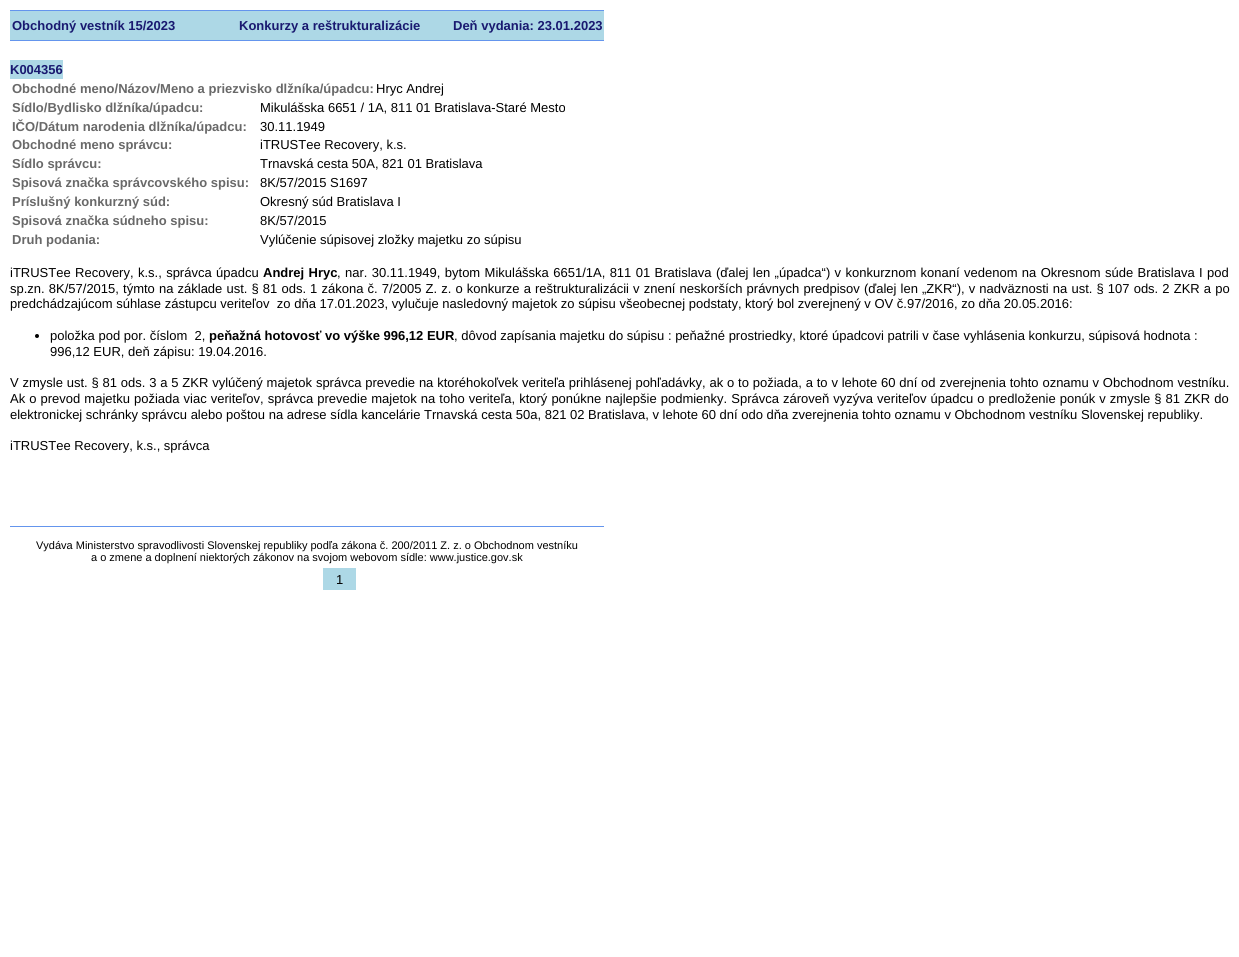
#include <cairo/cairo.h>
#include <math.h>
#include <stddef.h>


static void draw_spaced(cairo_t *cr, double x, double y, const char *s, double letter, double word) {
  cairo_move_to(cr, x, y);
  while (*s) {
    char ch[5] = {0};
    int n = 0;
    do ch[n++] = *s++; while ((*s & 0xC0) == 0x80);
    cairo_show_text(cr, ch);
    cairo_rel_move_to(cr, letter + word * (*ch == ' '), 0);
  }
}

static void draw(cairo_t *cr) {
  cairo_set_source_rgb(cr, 1, 1, 1);
  cairo_paint(cr);
  cairo_set_source_rgb(cr, 173 / 255.0, 216 / 255.0, 230 / 255.0);
  cairo_rectangle(cr, 10, 11, 594, 29);
  cairo_fill(cr);
  cairo_set_source_rgb(cr, 100 / 255.0, 149 / 255.0, 237 / 255.0);
  cairo_rectangle(cr, 10, 10, 594, 1);
  cairo_fill(cr);
  cairo_rectangle(cr, 10, 40, 594, 1);
  cairo_fill(cr);
  cairo_set_source_rgb(cr, 173 / 255.0, 216 / 255.0, 230 / 255.0);
  cairo_rectangle(cr, 10, 60, 53, 19);
  cairo_fill(cr);
  cairo_set_source_rgb(cr, 0, 0, 0);
  cairo_arc(cr, 37, 336, 2, 0, 2 * M_PI);
  cairo_fill(cr);
  cairo_set_source_rgb(cr, 100 / 255.0, 149 / 255.0, 237 / 255.0);
  cairo_rectangle(cr, 10, 526, 594, 1);
  cairo_fill(cr);
  cairo_set_source_rgb(cr, 173 / 255.0, 216 / 255.0, 230 / 255.0);
  cairo_rectangle(cr, 323, 568, 33, 22);
  cairo_fill(cr);
  cairo_select_font_face(cr, "Liberation Sans", CAIRO_FONT_SLANT_NORMAL, CAIRO_FONT_WEIGHT_BOLD);
  cairo_set_font_size(cr, 13);
  cairo_set_source_rgb(cr, 25 / 255.0, 25 / 255.0, 112 / 255.0);
  cairo_move_to(cr, 12, 30);
  cairo_show_text(cr, "Obchodný vestník 15/2023");
  cairo_move_to(cr, 239, 30);
  cairo_show_text(cr, "Konkurzy a reštrukturalizácie");
  cairo_move_to(cr, 453, 30);
  cairo_show_text(cr, "Deň vydania: 23.01.2023");
  cairo_move_to(cr, 10, 74);
  cairo_show_text(cr, "K004356");
  cairo_set_source_rgb(cr, 105 / 255.0, 105 / 255.0, 105 / 255.0);
  cairo_move_to(cr, 12, 93);
  cairo_show_text(cr, "Obchodné meno/Názov/Meno a priezvisko dlžníka/úpadcu:");
  cairo_select_font_face(cr, "Liberation Sans", CAIRO_FONT_SLANT_NORMAL, CAIRO_FONT_WEIGHT_NORMAL);
  cairo_set_source_rgb(cr, 0, 0, 0);
  cairo_move_to(cr, 376, 93);
  cairo_show_text(cr, "Hryc Andrej");
  cairo_select_font_face(cr, "Liberation Sans", CAIRO_FONT_SLANT_NORMAL, CAIRO_FONT_WEIGHT_BOLD);
  cairo_set_source_rgb(cr, 105 / 255.0, 105 / 255.0, 105 / 255.0);
  cairo_move_to(cr, 12, 112);
  cairo_show_text(cr, "Sídlo/Bydlisko dlžníka/úpadcu:");
  cairo_select_font_face(cr, "Liberation Sans", CAIRO_FONT_SLANT_NORMAL, CAIRO_FONT_WEIGHT_NORMAL);
  cairo_set_source_rgb(cr, 0, 0, 0);
  cairo_move_to(cr, 260, 112);
  cairo_show_text(cr, "Mikulášska 6651 / 1A, 811 01 Bratislava-Staré Mesto");
  cairo_select_font_face(cr, "Liberation Sans", CAIRO_FONT_SLANT_NORMAL, CAIRO_FONT_WEIGHT_BOLD);
  cairo_set_source_rgb(cr, 105 / 255.0, 105 / 255.0, 105 / 255.0);
  cairo_move_to(cr, 12, 131);
  cairo_show_text(cr, "IČO/Dátum narodenia dlžníka/úpadcu:");
  cairo_select_font_face(cr, "Liberation Sans", CAIRO_FONT_SLANT_NORMAL, CAIRO_FONT_WEIGHT_NORMAL);
  cairo_set_source_rgb(cr, 0, 0, 0);
  cairo_move_to(cr, 260, 131);
  cairo_show_text(cr, "30.11.1949");
  cairo_select_font_face(cr, "Liberation Sans", CAIRO_FONT_SLANT_NORMAL, CAIRO_FONT_WEIGHT_BOLD);
  cairo_set_source_rgb(cr, 105 / 255.0, 105 / 255.0, 105 / 255.0);
  cairo_move_to(cr, 12, 149);
  cairo_show_text(cr, "Obchodné meno správcu:");
  cairo_select_font_face(cr, "Liberation Sans", CAIRO_FONT_SLANT_NORMAL, CAIRO_FONT_WEIGHT_NORMAL);
  cairo_set_source_rgb(cr, 0, 0, 0);
  cairo_move_to(cr, 260, 149);
  cairo_show_text(cr, "iTRUSTee Recovery, k.s.");
  cairo_select_font_face(cr, "Liberation Sans", CAIRO_FONT_SLANT_NORMAL, CAIRO_FONT_WEIGHT_BOLD);
  cairo_set_source_rgb(cr, 105 / 255.0, 105 / 255.0, 105 / 255.0);
  cairo_move_to(cr, 12, 168);
  cairo_show_text(cr, "Sídlo správcu:");
  cairo_select_font_face(cr, "Liberation Sans", CAIRO_FONT_SLANT_NORMAL, CAIRO_FONT_WEIGHT_NORMAL);
  cairo_set_source_rgb(cr, 0, 0, 0);
  cairo_move_to(cr, 260, 168);
  cairo_show_text(cr, "Trnavská cesta 50A, 821 01 Bratislava");
  cairo_select_font_face(cr, "Liberation Sans", CAIRO_FONT_SLANT_NORMAL, CAIRO_FONT_WEIGHT_BOLD);
  cairo_set_source_rgb(cr, 105 / 255.0, 105 / 255.0, 105 / 255.0);
  cairo_move_to(cr, 12, 187);
  cairo_show_text(cr, "Spisová značka správcovského spisu:");
  cairo_select_font_face(cr, "Liberation Sans", CAIRO_FONT_SLANT_NORMAL, CAIRO_FONT_WEIGHT_NORMAL);
  cairo_set_source_rgb(cr, 0, 0, 0);
  cairo_move_to(cr, 260, 187);
  cairo_show_text(cr, "8K/57/2015 S1697");
  cairo_select_font_face(cr, "Liberation Sans", CAIRO_FONT_SLANT_NORMAL, CAIRO_FONT_WEIGHT_BOLD);
  cairo_set_source_rgb(cr, 105 / 255.0, 105 / 255.0, 105 / 255.0);
  cairo_move_to(cr, 12, 206);
  cairo_show_text(cr, "Príslušný konkurzný súd:");
  cairo_select_font_face(cr, "Liberation Sans", CAIRO_FONT_SLANT_NORMAL, CAIRO_FONT_WEIGHT_NORMAL);
  cairo_set_source_rgb(cr, 0, 0, 0);
  cairo_move_to(cr, 260, 206);
  cairo_show_text(cr, "Okresný súd Bratislava I");
  cairo_select_font_face(cr, "Liberation Sans", CAIRO_FONT_SLANT_NORMAL, CAIRO_FONT_WEIGHT_BOLD);
  cairo_set_source_rgb(cr, 105 / 255.0, 105 / 255.0, 105 / 255.0);
  cairo_move_to(cr, 12, 225);
  cairo_show_text(cr, "Spisová značka súdneho spisu:");
  cairo_select_font_face(cr, "Liberation Sans", CAIRO_FONT_SLANT_NORMAL, CAIRO_FONT_WEIGHT_NORMAL);
  cairo_set_source_rgb(cr, 0, 0, 0);
  cairo_move_to(cr, 260, 225);
  cairo_show_text(cr, "8K/57/2015");
  cairo_select_font_face(cr, "Liberation Sans", CAIRO_FONT_SLANT_NORMAL, CAIRO_FONT_WEIGHT_BOLD);
  cairo_set_source_rgb(cr, 105 / 255.0, 105 / 255.0, 105 / 255.0);
  cairo_move_to(cr, 12, 244);
  cairo_show_text(cr, "Druh podania:");
  cairo_select_font_face(cr, "Liberation Sans", CAIRO_FONT_SLANT_NORMAL, CAIRO_FONT_WEIGHT_NORMAL);
  cairo_set_source_rgb(cr, 0, 0, 0);
  cairo_move_to(cr, 260, 244);
  cairo_show_text(cr, "Vylúčenie súpisovej zložky majetku zo súpisu");
  draw_spaced(cr, 10, 277, "iTRUSTee Recovery, k.s., správca úpadcu", 0, 0.75);
  cairo_select_font_face(cr, "Liberation Sans", CAIRO_FONT_SLANT_NORMAL, CAIRO_FONT_WEIGHT_BOLD);
  draw_spaced(cr, 263, 277, "Andrej Hryc", 0, 0.75);
  cairo_select_font_face(cr, "Liberation Sans", CAIRO_FONT_SLANT_NORMAL, CAIRO_FONT_WEIGHT_NORMAL);
  draw_spaced(cr, 337, 277, ", nar. 30.11.1949, bytom Mikulášska 6651/1A, 811 01 Bratislava (ďalej len „úpadca“) v konkurznom konaní vedenom na Okresnom súde Bratislava I pod", 0, 0.75);
  draw_spaced(cr, 10, 293, "sp.zn. 8K/57/2015, týmto na základe ust. § 81 ods. 1 zákona č. 7/2005 Z. z. o konkurze a reštrukturalizácii v znení neskorších právnych predpisov (ďalej len „ZKR“), v nadväznosti na ust. § 107 ods. 2 ZKR a po", 0, 0.5);
  cairo_move_to(cr, 10, 308);
  cairo_show_text(cr, "predchádzajúcom súhlase zástupcu veriteľov  zo dňa 17.01.2023, vylučuje nasledovný majetok zo súpisu všeobecnej podstaty, ktorý bol zverejnený v OV č.97/2016, zo dňa 20.05.2016:");
  cairo_move_to(cr, 50, 340);
  cairo_show_text(cr, "položka pod por. číslom  2,");
  cairo_select_font_face(cr, "Liberation Sans", CAIRO_FONT_SLANT_NORMAL, CAIRO_FONT_WEIGHT_BOLD);
  cairo_move_to(cr, 209, 340);
  cairo_show_text(cr, "peňažná hotovosť vo výške 996,12 EUR");
  cairo_select_font_face(cr, "Liberation Sans", CAIRO_FONT_SLANT_NORMAL, CAIRO_FONT_WEIGHT_NORMAL);
  cairo_move_to(cr, 454, 340);
  cairo_show_text(cr, ", dôvod zapísania majetku do súpisu : peňažné prostriedky, ktoré úpadcovi patrili v čase vyhlásenia konkurzu, súpisová hodnota :");
  cairo_move_to(cr, 50, 356);
  cairo_show_text(cr, "996,12 EUR, deň zápisu: 19.04.2016.");
  draw_spaced(cr, 10, 387, "V zmysle ust. § 81 ods. 3 a 5 ZKR vylúčený majetok správca prevedie na ktoréhokoľvek veriteľa prihlásenej pohľadávky, ak o to požiada, a to v lehote 60 dní od zverejnenia tohto oznamu v Obchodnom vestníku.", 0, 0.2);
  draw_spaced(cr, 10, 403, "Ak o prevod majetku požiada viac veriteľov, správca prevedie majetok na toho veriteľa, ktorý ponúkne najlepšie podmienky. Správca zároveň vyzýva veriteľov úpadcu o predloženie ponúk v zmysle § 81 ZKR do", 0, 0.45);
  cairo_move_to(cr, 10, 419);
  cairo_show_text(cr, "elektronickej schránky správcu alebo poštou na adrese sídla kancelárie Trnavská cesta 50a, 821 02 Bratislava, v lehote 60 dní odo dňa zverejnenia tohto oznamu v Obchodnom vestníku Slovenskej republiky.");
  cairo_move_to(cr, 10, 450);
  cairo_show_text(cr, "iTRUSTee Recovery, k.s., správca");
  cairo_set_font_size(cr, 11);
  cairo_move_to(cr, 36, 549);
  cairo_show_text(cr, "Vydáva Ministerstvo spravodlivosti Slovenskej republiky podľa zákona č. 200/2011 Z. z. o Obchodnom vestníku");
  cairo_move_to(cr, 91, 561);
  cairo_show_text(cr, "a o zmene a doplnení niektorých zákonov na svojom webovom sídle: www.justice.gov.sk");
  cairo_set_font_size(cr, 13);
  cairo_move_to(cr, 336, 584);
  cairo_show_text(cr, "1");
}

int main(void) {
  cairo_surface_t *surface = cairo_image_surface_create(CAIRO_FORMAT_RGB24, 1239, 957);
  cairo_t *cr = cairo_create(surface);
  cairo_font_options_t *options = cairo_font_options_create();
  cairo_font_options_set_hint_metrics(options, CAIRO_HINT_METRICS_OFF);
  cairo_font_options_set_hint_style(options, CAIRO_HINT_STYLE_NONE);
  cairo_set_font_options(cr, options);
  cairo_set_miter_limit(cr, 4);
  draw(cr);
  cairo_surface_write_to_png(surface, "out.png");
  cairo_font_options_destroy(options);
  cairo_destroy(cr);
  cairo_surface_destroy(surface);
  return 0;
}
